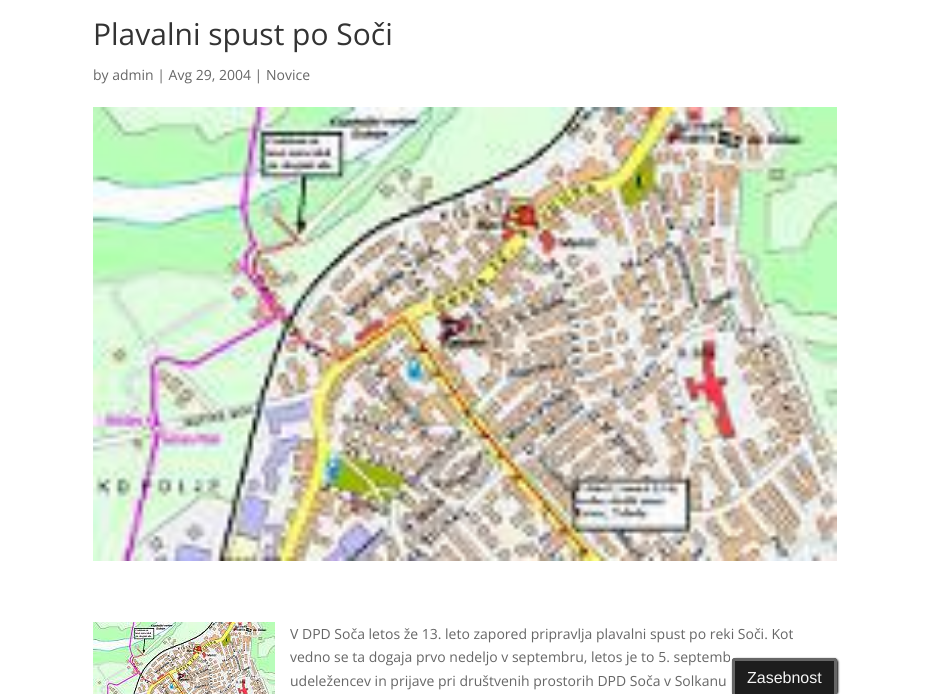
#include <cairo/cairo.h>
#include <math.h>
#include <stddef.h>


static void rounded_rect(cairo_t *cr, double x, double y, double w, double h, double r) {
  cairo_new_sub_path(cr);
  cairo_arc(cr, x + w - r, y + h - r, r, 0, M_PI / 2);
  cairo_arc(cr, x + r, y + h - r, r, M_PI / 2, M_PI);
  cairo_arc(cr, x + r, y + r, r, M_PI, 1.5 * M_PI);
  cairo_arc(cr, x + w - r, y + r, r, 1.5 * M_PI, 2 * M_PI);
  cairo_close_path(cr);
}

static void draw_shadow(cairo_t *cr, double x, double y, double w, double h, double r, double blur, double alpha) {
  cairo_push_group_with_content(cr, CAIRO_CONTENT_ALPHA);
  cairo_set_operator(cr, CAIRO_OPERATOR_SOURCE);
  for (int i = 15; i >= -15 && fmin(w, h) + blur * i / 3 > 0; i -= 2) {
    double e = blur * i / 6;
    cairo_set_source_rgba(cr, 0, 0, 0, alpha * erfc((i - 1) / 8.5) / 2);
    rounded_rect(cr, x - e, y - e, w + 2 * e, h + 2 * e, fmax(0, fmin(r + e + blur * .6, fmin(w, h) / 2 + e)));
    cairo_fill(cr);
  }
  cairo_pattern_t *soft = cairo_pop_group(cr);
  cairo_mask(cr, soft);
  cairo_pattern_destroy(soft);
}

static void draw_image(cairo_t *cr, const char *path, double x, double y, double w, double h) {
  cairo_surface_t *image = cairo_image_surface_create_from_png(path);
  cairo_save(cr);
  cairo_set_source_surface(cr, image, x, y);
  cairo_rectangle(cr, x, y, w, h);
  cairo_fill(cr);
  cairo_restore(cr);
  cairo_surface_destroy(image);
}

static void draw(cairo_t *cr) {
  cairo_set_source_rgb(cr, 1, 1, 1);
  cairo_paint(cr);
  draw_image(cr, "images/1.png", 93, 107, 744, 454);
  draw_image(cr, "images/2.png", 93, 622, 182, 72);
  cairo_set_source_rgb(cr, 0, 0, 0);
  draw_shadow(cr, 733, 659, 105, 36, 3, 1, 1);
  cairo_set_source_rgb(cr, 29 / 255.0, 29 / 255.0, 29 / 255.0);
  cairo_new_path(cr);
  cairo_move_to(cr, 735, 658);
  cairo_line_to(cr, 834, 658);
  cairo_curve_to(cr, 835.5, 658, 837, 659.5, 837, 661);
  cairo_line_to(cr, 837, 694);
  cairo_line_to(cr, 732, 694);
  cairo_line_to(cr, 732, 661);
  cairo_curve_to(cr, 732, 659.5, 733.5, 658, 735, 658);
  cairo_close_path(cr);
  cairo_fill(cr);
  cairo_set_source_rgb(cr, 102 / 255.0, 102 / 255.0, 102 / 255.0);
  cairo_set_fill_rule(cr, CAIRO_FILL_RULE_EVEN_ODD);
  cairo_new_path(cr);
  cairo_move_to(cr, 735, 658);
  cairo_line_to(cr, 834, 658);
  cairo_curve_to(cr, 836, 658, 837, 659, 837, 661);
  cairo_line_to(cr, 837, 694);
  cairo_line_to(cr, 732, 694);
  cairo_line_to(cr, 732, 661);
  cairo_curve_to(cr, 732, 659, 733, 658, 735, 658);
  cairo_close_path(cr);
  cairo_move_to(cr, 735, 661);
  cairo_line_to(cr, 834, 661);
  cairo_line_to(cr, 834, 694);
  cairo_line_to(cr, 735, 694);
  cairo_close_path(cr);
  cairo_fill(cr);
  cairo_select_font_face(cr, "Open Sans", CAIRO_FONT_SLANT_NORMAL, CAIRO_FONT_WEIGHT_NORMAL);
  cairo_set_font_size(cr, 30);
  cairo_set_source_rgb(cr, 51 / 255.0, 51 / 255.0, 51 / 255.0);
  cairo_move_to(cr, 93, 45);
  cairo_show_text(cr, "Plavalni spust po Soči");
  cairo_set_font_size(cr, 14);
  cairo_set_source_rgb(cr, 102 / 255.0, 102 / 255.0, 102 / 255.0);
  cairo_move_to(cr, 93, 80);
  cairo_show_text(cr, "by admin | Avg 29, 2004 | Novice");
  cairo_move_to(cr, 290, 639);
  cairo_show_text(cr, "V DPD Soča letos že 13. leto zapored pripravlja plavalni spust po reki Soči. Kot");
  cairo_move_to(cr, 290, 662);
  cairo_show_text(cr, "vedno se ta dogaja prvo nedeljo v septembru, letos je to 5. septemb");
  cairo_move_to(cr, 290, 686);
  cairo_show_text(cr, "udeležencev in prijave pri društvenih prostorih DPD Soča v Solkanu");
  cairo_select_font_face(cr, "Liberation Sans", CAIRO_FONT_SLANT_NORMAL, CAIRO_FONT_WEIGHT_NORMAL);
  cairo_set_font_size(cr, 16);
  cairo_set_source_rgb(cr, 245 / 255.0, 245 / 255.0, 245 / 255.0);
  cairo_move_to(cr, 747, 683);
  cairo_show_text(cr, "Zasebnost");
}

int main(void) {
  cairo_surface_t *surface = cairo_image_surface_create(CAIRO_FORMAT_RGB24, 930, 694);
  cairo_t *cr = cairo_create(surface);
  cairo_font_options_t *options = cairo_font_options_create();
  cairo_font_options_set_hint_metrics(options, CAIRO_HINT_METRICS_OFF);
  cairo_font_options_set_hint_style(options, CAIRO_HINT_STYLE_NONE);
  cairo_set_font_options(cr, options);
  cairo_set_miter_limit(cr, 4);
  draw(cr);
  cairo_surface_write_to_png(surface, "out.png");
  cairo_font_options_destroy(options);
  cairo_destroy(cr);
  cairo_surface_destroy(surface);
  return 0;
}
